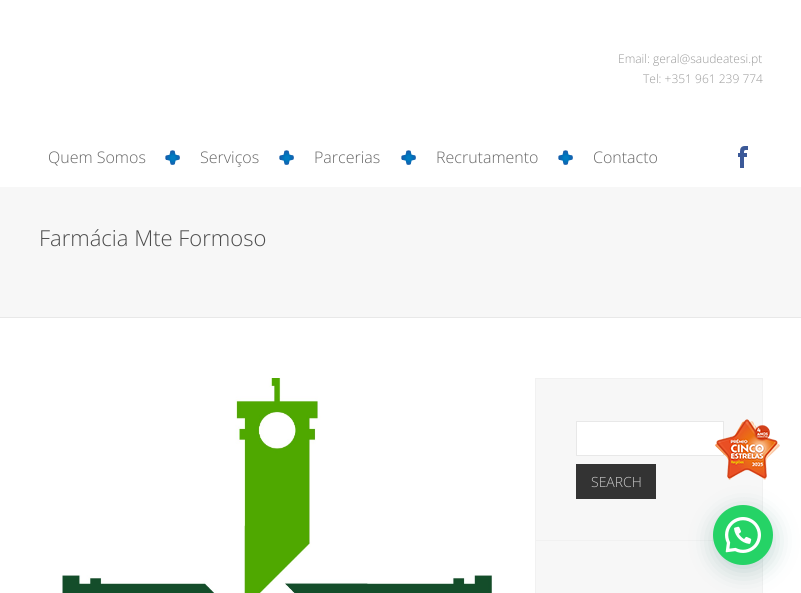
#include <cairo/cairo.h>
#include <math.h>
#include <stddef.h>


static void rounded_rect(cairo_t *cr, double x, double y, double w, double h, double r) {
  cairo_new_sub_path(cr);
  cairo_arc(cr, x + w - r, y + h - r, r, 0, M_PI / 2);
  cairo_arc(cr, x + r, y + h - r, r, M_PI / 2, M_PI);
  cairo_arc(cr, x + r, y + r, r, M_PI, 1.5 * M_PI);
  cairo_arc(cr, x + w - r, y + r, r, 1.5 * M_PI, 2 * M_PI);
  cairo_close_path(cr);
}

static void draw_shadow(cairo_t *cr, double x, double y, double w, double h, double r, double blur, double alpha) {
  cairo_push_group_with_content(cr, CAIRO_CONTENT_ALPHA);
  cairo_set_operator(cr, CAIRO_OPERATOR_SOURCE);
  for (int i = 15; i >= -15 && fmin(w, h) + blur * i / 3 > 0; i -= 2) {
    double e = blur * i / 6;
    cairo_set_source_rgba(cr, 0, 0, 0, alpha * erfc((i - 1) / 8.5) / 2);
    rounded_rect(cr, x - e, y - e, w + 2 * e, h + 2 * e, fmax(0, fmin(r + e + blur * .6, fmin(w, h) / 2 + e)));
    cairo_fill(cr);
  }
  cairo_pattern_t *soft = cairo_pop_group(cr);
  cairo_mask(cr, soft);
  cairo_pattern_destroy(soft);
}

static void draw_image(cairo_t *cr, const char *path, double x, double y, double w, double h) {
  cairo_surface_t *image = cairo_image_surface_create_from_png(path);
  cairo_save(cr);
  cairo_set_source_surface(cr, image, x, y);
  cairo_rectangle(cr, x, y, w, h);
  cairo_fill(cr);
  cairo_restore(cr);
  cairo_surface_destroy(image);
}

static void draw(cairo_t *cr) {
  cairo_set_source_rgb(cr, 1, 1, 1);
  cairo_paint(cr);
  draw_image(cr, "images/1.png", 165, 150, 15, 15);
  draw_image(cr, "images/2.png", 279, 150, 15, 15);
  draw_image(cr, "images/1.png", 401, 150, 15, 15);
  draw_image(cr, "images/1.png", 558, 150, 15, 15);
  draw_image(cr, "images/3.png", 738, 146, 10, 22);
  cairo_set_source_rgb(cr, 247 / 255.0, 247 / 255.0, 247 / 255.0);
  cairo_rectangle(cr, 0, 187, 801, 130);
  cairo_fill(cr);
  cairo_set_source_rgb(cr, 232 / 255.0, 232 / 255.0, 232 / 255.0);
  cairo_rectangle(cr, 0, 317, 801, 1);
  cairo_fill(cr);
  draw_image(cr, "images/4.png", 62, 378, 431, 215);
  cairo_set_source_rgb(cr, 247 / 255.0, 247 / 255.0, 247 / 255.0);
  cairo_rectangle(cr, 536, 379, 226, 214);
  cairo_fill(cr);
  cairo_set_source_rgb(cr, 241 / 255.0, 241 / 255.0, 241 / 255.0);
  cairo_rectangle(cr, 535, 378, 228, 1);
  cairo_fill(cr);
  cairo_rectangle(cr, 762, 378, 1, 215);
  cairo_fill(cr);
  cairo_rectangle(cr, 535, 378, 1, 215);
  cairo_fill(cr);
  cairo_rectangle(cr, 536, 540, 178, 1);
  cairo_fill(cr);
  cairo_set_source_rgb(cr, 1, 1, 1);
  cairo_rectangle(cr, 576.5, 421.5, 147, 34);
  cairo_fill_preserve(cr);
  cairo_set_source_rgb(cr, 232 / 255.0, 232 / 255.0, 232 / 255.0);
  cairo_set_line_width(cr, 1);
  cairo_stroke(cr);
  cairo_set_source_rgb(cr, 51 / 255.0, 51 / 255.0, 51 / 255.0);
  cairo_rectangle(cr, 576, 464, 80, 35);
  cairo_fill(cr);
  draw_image(cr, "images/5.png", 715, 419, 65, 61);
  cairo_set_source_rgb(cr, 7 / 255.0, 94 / 255.0, 84 / 255.0);
  draw_shadow(cr, 714, 511, 60, 60, 30, 12, 0.24);
  cairo_set_source_rgb(cr, 37 / 255.0, 211 / 255.0, 102 / 255.0);
  cairo_arc(cr, 743, 535, 30, 0, 2 * M_PI);
  cairo_fill(cr);
  draw_image(cr, "images/6.png", 725, 517, 36, 36);
  cairo_select_font_face(cr, "Open Sans Light", CAIRO_FONT_SLANT_NORMAL, CAIRO_FONT_WEIGHT_NORMAL);
  cairo_set_font_size(cr, 12);
  cairo_set_source_rgb(cr, 153 / 255.0, 153 / 255.0, 153 / 255.0);
  cairo_move_to(cr, 618, 63);
  cairo_show_text(cr, "Email: geral@saudeatesi.pt");
  cairo_move_to(cr, 643, 83);
  cairo_show_text(cr, "Tel: +351 961 239 774");
  cairo_set_font_size(cr, 16);
  cairo_set_source_rgb(cr, 102 / 255.0, 102 / 255.0, 102 / 255.0);
  cairo_move_to(cr, 48, 163);
  cairo_show_text(cr, "Quem Somos");
  cairo_move_to(cr, 200, 163);
  cairo_show_text(cr, "Serviços");
  cairo_move_to(cr, 314, 163);
  cairo_show_text(cr, "Parcerias");
  cairo_move_to(cr, 436, 163);
  cairo_show_text(cr, "Recrutamento");
  cairo_move_to(cr, 593, 163);
  cairo_show_text(cr, "Contacto");
  cairo_set_font_size(cr, 22);
  cairo_set_source_rgb(cr, 76 / 255.0, 76 / 255.0, 76 / 255.0);
  cairo_move_to(cr, 39, 246);
  cairo_show_text(cr, "Farmácia Mte Formoso");
  cairo_set_font_size(cr, 14);
  cairo_set_source_rgb(cr, 204 / 255.0, 204 / 255.0, 204 / 255.0);
  cairo_move_to(cr, 591, 487);
  cairo_show_text(cr, "SEARCH");
}

int main(void) {
  cairo_surface_t *surface = cairo_image_surface_create(CAIRO_FORMAT_RGB24, 801, 593);
  cairo_t *cr = cairo_create(surface);
  cairo_font_options_t *options = cairo_font_options_create();
  cairo_font_options_set_hint_metrics(options, CAIRO_HINT_METRICS_OFF);
  cairo_font_options_set_hint_style(options, CAIRO_HINT_STYLE_NONE);
  cairo_set_font_options(cr, options);
  cairo_set_miter_limit(cr, 4);
  draw(cr);
  cairo_surface_write_to_png(surface, "out.png");
  cairo_font_options_destroy(options);
  cairo_destroy(cr);
  cairo_surface_destroy(surface);
  return 0;
}
